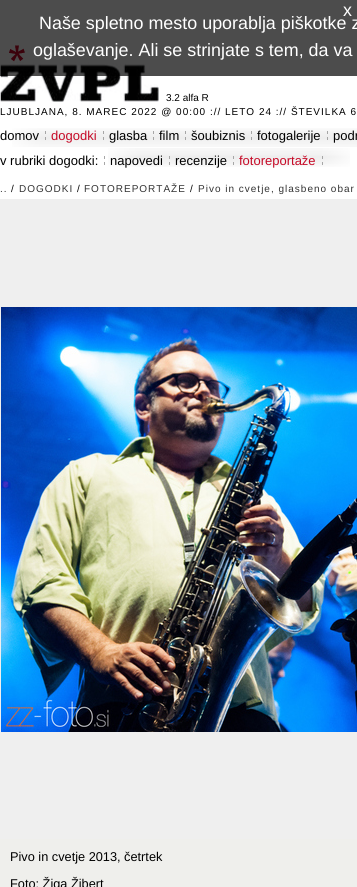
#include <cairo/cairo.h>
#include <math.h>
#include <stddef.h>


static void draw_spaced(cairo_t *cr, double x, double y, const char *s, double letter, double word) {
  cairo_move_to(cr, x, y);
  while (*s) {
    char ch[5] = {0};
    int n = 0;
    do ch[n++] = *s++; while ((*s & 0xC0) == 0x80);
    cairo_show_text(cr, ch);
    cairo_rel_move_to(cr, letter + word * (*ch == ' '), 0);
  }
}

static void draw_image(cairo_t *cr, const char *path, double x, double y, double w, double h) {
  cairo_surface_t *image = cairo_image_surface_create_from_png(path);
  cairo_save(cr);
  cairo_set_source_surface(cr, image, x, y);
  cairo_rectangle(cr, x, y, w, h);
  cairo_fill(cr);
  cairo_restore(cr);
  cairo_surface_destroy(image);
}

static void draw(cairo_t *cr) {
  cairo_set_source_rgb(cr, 1, 1, 1);
  cairo_paint(cr);
  draw_image(cr, "images/1.png", 0, 45, 159, 57);
  cairo_set_source_rgba(cr, 0, 0, 0, 0.7);
  cairo_rectangle(cr, 0, 0, 357, 76);
  cairo_fill(cr);
  draw_image(cr, "images/2.png", 12, 128, 345, 19);
  draw_image(cr, "images/3.png", 45, 131, 1, 9);
  draw_image(cr, "images/3.png", 103, 131, 1, 9);
  draw_image(cr, "images/3.png", 153, 131, 1, 9);
  draw_image(cr, "images/3.png", 185, 131, 1, 9);
  draw_image(cr, "images/3.png", 251, 131, 1, 9);
  draw_image(cr, "images/3.png", 327, 131, 1, 9);
  draw_image(cr, "images/4.png", 108, 148, 242, 19);
  draw_image(cr, "images/5.png", 104, 156, 1, 9);
  draw_image(cr, "images/6.png", 169, 156, 1, 9);
  draw_image(cr, "images/6.png", 233, 156, 1, 9);
  draw_image(cr, "images/7.png", 322, 156, 1, 9);
  cairo_set_source_rgb(cr, 239 / 255.0, 239 / 255.0, 239 / 255.0);
  cairo_rectangle(cr, 0, 199, 357, 640);
  cairo_fill(cr);
  draw_image(cr, "images/8.png", 1, 307, 356, 425);
  cairo_set_source_rgb(cr, 239 / 255.0, 239 / 255.0, 236 / 255.0);
  cairo_rectangle(cr, 0, 839, 357, 48);
  cairo_fill(cr);
  cairo_select_font_face(cr, "Liberation Sans", CAIRO_FONT_SLANT_NORMAL, CAIRO_FONT_WEIGHT_NORMAL);
  cairo_set_font_size(cr, 17.9);
  cairo_set_source_rgb(cr, 1, 1, 1);
  cairo_move_to(cr, 343, 16);
  cairo_show_text(cr, "x");
  cairo_move_to(cr, 39, 29);
  cairo_show_text(cr, "Naše spletno mesto uporablja piškotke z");
  cairo_move_to(cr, 33, 56);
  cairo_show_text(cr, "oglaševanje. Ali se strinjate s tem, da va");
  cairo_set_font_size(cr, 10);
  cairo_set_source_rgb(cr, 0, 0, 0);
  cairo_move_to(cr, 166, 101);
  cairo_show_text(cr, "3.2 alfa R");
  draw_spaced(cr, 0, 115, "LJUBLJANA, 8. MAREC 2022 @ 00:00 :// LETO 24 :// ŠTEVILKA 6", 1, 0);
  cairo_set_font_size(cr, 13);
  cairo_move_to(cr, 0, 140);
  cairo_show_text(cr, "domov");
  cairo_set_source_rgb(cr, 198 / 255.0, 10 / 255.0, 39 / 255.0);
  cairo_move_to(cr, 51, 140);
  cairo_show_text(cr, "dogodki");
  cairo_set_source_rgb(cr, 0, 0, 0);
  cairo_move_to(cr, 109, 140);
  cairo_show_text(cr, "glasba");
  cairo_move_to(cr, 159, 140);
  cairo_show_text(cr, "film");
  cairo_move_to(cr, 191, 140);
  cairo_show_text(cr, "šoubiznis");
  cairo_move_to(cr, 257, 140);
  cairo_show_text(cr, "fotogalerije");
  cairo_move_to(cr, 333, 140);
  cairo_show_text(cr, "podr");
  cairo_move_to(cr, 0, 165);
  cairo_show_text(cr, "v rubriki dogodki:");
  cairo_move_to(cr, 110, 165);
  cairo_show_text(cr, "napovedi");
  cairo_move_to(cr, 175, 165);
  cairo_show_text(cr, "recenzije");
  cairo_set_source_rgb(cr, 198 / 255.0, 10 / 255.0, 39 / 255.0);
  cairo_move_to(cr, 239, 165);
  cairo_show_text(cr, "fotoreportaže");
  cairo_set_font_size(cr, 10);
  cairo_set_source_rgb(cr, 51 / 255.0, 51 / 255.0, 51 / 255.0);
  draw_spaced(cr, 0, 192, "..", 1, 0);
  cairo_set_source_rgb(cr, 0, 0, 0);
  draw_spaced(cr, 11, 192, "/", 1, 0);
  cairo_set_source_rgb(cr, 51 / 255.0, 51 / 255.0, 51 / 255.0);
  draw_spaced(cr, 19, 192, "DOGODKI", 1, 0);
  cairo_set_source_rgb(cr, 0, 0, 0);
  draw_spaced(cr, 77, 192, "/", 1, 0);
  cairo_set_source_rgb(cr, 51 / 255.0, 51 / 255.0, 51 / 255.0);
  draw_spaced(cr, 84, 192, "FOTOREPORTAŽE", 1, 0);
  cairo_set_source_rgb(cr, 0, 0, 0);
  draw_spaced(cr, 190, 192, "/", 1, 0);
  cairo_set_source_rgb(cr, 51 / 255.0, 51 / 255.0, 51 / 255.0);
  draw_spaced(cr, 198, 192, "Pivo in cvetje, glasbeno obar", 1, 0);
  cairo_set_font_size(cr, 12.75);
  cairo_set_source_rgb(cr, 0, 0, 0);
  cairo_move_to(cr, 10, 861);
  cairo_show_text(cr, "Pivo in cvetje 2013, četrtek");
  cairo_move_to(cr, 10, 888);
  cairo_show_text(cr, "Foto: Žiga Žibert");
}

int main(void) {
  cairo_surface_t *surface = cairo_image_surface_create(CAIRO_FORMAT_RGB24, 357, 887);
  cairo_t *cr = cairo_create(surface);
  cairo_font_options_t *options = cairo_font_options_create();
  cairo_font_options_set_hint_metrics(options, CAIRO_HINT_METRICS_OFF);
  cairo_font_options_set_hint_style(options, CAIRO_HINT_STYLE_NONE);
  cairo_set_font_options(cr, options);
  cairo_set_miter_limit(cr, 4);
  draw(cr);
  cairo_surface_write_to_png(surface, "out.png");
  cairo_font_options_destroy(options);
  cairo_destroy(cr);
  cairo_surface_destroy(surface);
  return 0;
}
